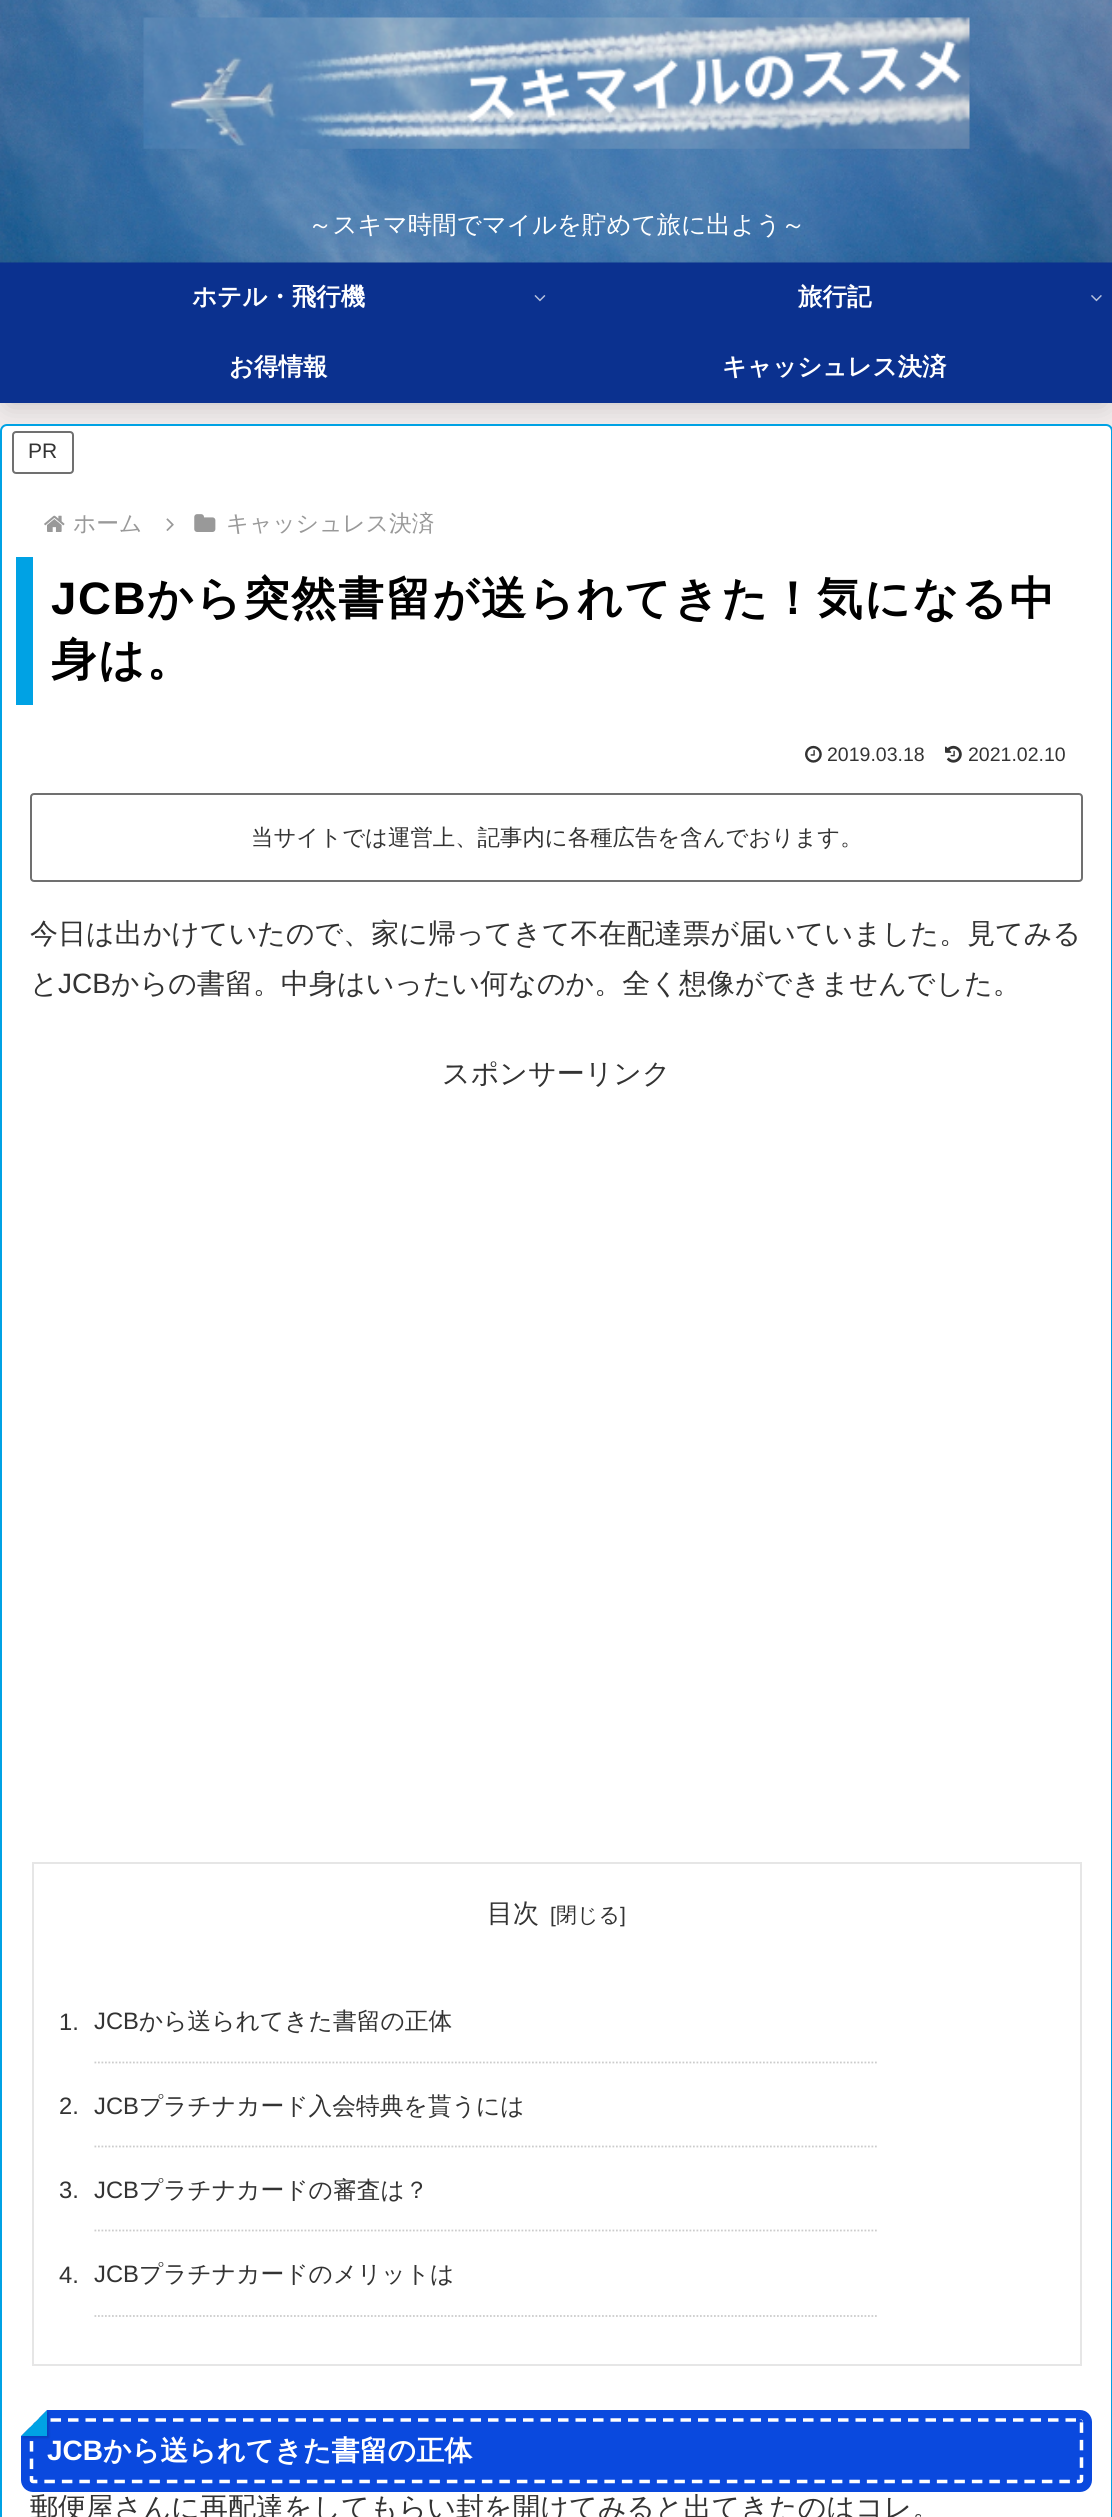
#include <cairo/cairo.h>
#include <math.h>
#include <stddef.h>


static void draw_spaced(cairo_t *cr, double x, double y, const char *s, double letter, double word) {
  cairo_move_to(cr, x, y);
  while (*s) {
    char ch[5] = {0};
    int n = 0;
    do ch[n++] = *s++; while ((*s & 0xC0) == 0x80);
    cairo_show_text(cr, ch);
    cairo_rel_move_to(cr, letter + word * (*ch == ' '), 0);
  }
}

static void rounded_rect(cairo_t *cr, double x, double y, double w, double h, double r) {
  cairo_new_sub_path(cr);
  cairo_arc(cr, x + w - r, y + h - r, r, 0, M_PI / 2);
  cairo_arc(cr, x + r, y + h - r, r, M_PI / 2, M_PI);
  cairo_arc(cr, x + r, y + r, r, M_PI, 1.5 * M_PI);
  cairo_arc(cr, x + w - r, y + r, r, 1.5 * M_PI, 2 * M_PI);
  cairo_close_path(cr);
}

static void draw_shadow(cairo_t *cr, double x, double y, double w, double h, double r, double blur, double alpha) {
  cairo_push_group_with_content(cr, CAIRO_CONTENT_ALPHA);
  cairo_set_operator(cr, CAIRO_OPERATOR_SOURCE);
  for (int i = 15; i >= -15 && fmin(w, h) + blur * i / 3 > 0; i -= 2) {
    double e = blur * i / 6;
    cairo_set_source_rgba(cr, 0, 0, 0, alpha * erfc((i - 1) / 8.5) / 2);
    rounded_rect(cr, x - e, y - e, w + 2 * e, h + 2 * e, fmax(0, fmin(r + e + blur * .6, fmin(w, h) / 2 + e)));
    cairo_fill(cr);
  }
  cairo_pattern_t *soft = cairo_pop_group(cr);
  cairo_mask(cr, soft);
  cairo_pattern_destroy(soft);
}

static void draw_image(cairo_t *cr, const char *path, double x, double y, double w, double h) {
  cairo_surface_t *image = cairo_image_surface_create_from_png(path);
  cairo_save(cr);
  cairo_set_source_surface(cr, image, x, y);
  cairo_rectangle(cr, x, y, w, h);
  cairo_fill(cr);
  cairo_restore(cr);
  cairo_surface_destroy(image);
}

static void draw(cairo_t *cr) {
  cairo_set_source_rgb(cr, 240 / 255.0, 235 / 255.0, 235 / 255.0);
  cairo_paint(cr);
  cairo_set_source_rgb(cr, 11 / 255.0, 49 / 255.0, 143 / 255.0);
  cairo_rectangle(cr, 0, 262, 1112, 1);
  cairo_fill(cr);
  draw_image(cr, "images/1.png", 0, 0, 1112, 263);
  draw_image(cr, "images/2.png", 143, 17, 827, 132);
  cairo_set_source_rgb(cr, 0, 0, 0);
  draw_shadow(cr, 9, 280, 1095, 123, 0, 13, 0.2);
  cairo_set_source_rgb(cr, 11 / 255.0, 49 / 255.0, 143 / 255.0);
  cairo_rectangle(cr, 0, 263, 1112, 140);
  cairo_fill(cr);
  draw_image(cr, "images/3.png", 534, 295, 12, 7);
  draw_image(cr, "images/4.png", 1091, 295, 11, 7);
  cairo_set_source_rgb(cr, 1, 1, 1);
  rounded_rect(cr, 1, 425, 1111, 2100, 6);
  cairo_fill_preserve(cr);
  cairo_set_source_rgb(cr, 0, 162 / 255.0, 228 / 255.0);
  cairo_stroke(cr);
  rounded_rect(cr, 13, 432, 60, 41, 3);
  cairo_set_source_rgb(cr, 112 / 255.0, 112 / 255.0, 112 / 255.0);
  cairo_stroke(cr);
  draw_image(cr, "images/5.png", 44, 515, 21, 17);
  draw_image(cr, "images/6.png", 166, 518, 8, 13);
  draw_image(cr, "images/7.png", 194, 514, 22, 18);
  cairo_set_source_rgb(cr, 0, 162 / 255.0, 228 / 255.0);
  cairo_rectangle(cr, 16, 557, 17, 148);
  cairo_fill(cr);
  draw_image(cr, "images/8.png", 805, 745, 17, 18);
  draw_image(cr, "images/9.png", 945, 745, 17, 18);
  rounded_rect(cr, 31, 794, 1051, 87, 3);
  cairo_set_source_rgb(cr, 112 / 255.0, 112 / 255.0, 112 / 255.0);
  cairo_stroke(cr);
  cairo_rectangle(cr, 33, 1863, 1048, 502);
  cairo_set_source_rgb(cr, 230 / 255.0, 230 / 255.0, 230 / 255.0);
  cairo_stroke(cr);
  cairo_new_path(cr);
  cairo_move_to(cr, 94.5, 2062.5);
  cairo_line_to(cr, 878.5, 2062.5);
  cairo_set_source_rgb(cr, 204 / 255.0, 204 / 255.0, 204 / 255.0);
  cairo_set_line_width(cr, 1.8);
  cairo_set_dash(cr, (double[]){1.75, 1.75}, 2, 0);
  cairo_stroke(cr);
  cairo_new_path(cr);
  cairo_move_to(cr, 94.5, 2146.5);
  cairo_line_to(cr, 878.5, 2146.5);
  cairo_stroke(cr);
  cairo_new_path(cr);
  cairo_move_to(cr, 94.5, 2230.5);
  cairo_line_to(cr, 878.5, 2230.5);
  cairo_stroke(cr);
  cairo_new_path(cr);
  cairo_move_to(cr, 94.5, 2316);
  cairo_line_to(cr, 878.5, 2316);
  cairo_stroke(cr);
  rounded_rect(cr, 25.5, 2414.5, 1062, 73, 7.5);
  cairo_set_source_rgb(cr, 10 / 255.0, 73 / 255.0, 222 / 255.0);
  cairo_set_line_width(cr, 9);
  cairo_set_dash(cr, NULL, 0, 0);
  cairo_stroke(cr);
  rounded_rect(cr, 30, 2419, 1053, 64, 4);
  cairo_fill(cr);
  cairo_new_path(cr);
  cairo_move_to(cr, 33, 2420);
  cairo_line_to(cr, 1080, 2420);
  cairo_curve_to(cr, 1080.5, 2420, 1081.5, 2421, 1081.5, 2422);
  cairo_line_to(cr, 1081.5, 2480);
  cairo_curve_to(cr, 1081.5, 2480.5, 1080.5, 2481.5, 1080, 2481.5);
  cairo_line_to(cr, 33, 2481.5);
  cairo_curve_to(cr, 32.5, 2481.5, 31.5, 2480.5, 31.5, 2480);
  cairo_line_to(cr, 31.5, 2422);
  cairo_curve_to(cr, 31.5, 2421, 32.5, 2420, 33, 2420);
  cairo_close_path(cr);
  cairo_set_source_rgb(cr, 1, 1, 1);
  cairo_set_line_width(cr, 3.5);
  cairo_set_dash(cr, (double[]){10.5, 7}, 2, 0);
  cairo_stroke(cr);
  cairo_set_source_rgb(cr, 0, 0, 0);
  draw_shadow(cr, 23, 2412, 26, 26, 0, 1, 0.15);
  cairo_set_source_rgb(cr, 0, 162 / 255.0, 228 / 255.0);
  cairo_new_path(cr);
  cairo_move_to(cr, 47, 2436);
  cairo_line_to(cr, 21, 2436);
  cairo_line_to(cr, 47, 2410);
  cairo_close_path(cr);
  cairo_fill(cr);
  cairo_set_source_rgb(cr, 1, 1, 1);
  cairo_new_path(cr);
  cairo_move_to(cr, 21, 2436);
  cairo_line_to(cr, 21, 2410);
  cairo_line_to(cr, 47, 2410);
  cairo_close_path(cr);
  cairo_fill(cr);
  cairo_select_font_face(cr, "WenQuanYi Zen Hei Medium", CAIRO_FONT_SLANT_NORMAL, CAIRO_FONT_WEIGHT_NORMAL);
  cairo_set_font_size(cr, 24.5);
  cairo_move_to(cr, 308, 233);
  cairo_show_text(cr, "～スキマ時間でマイルを貯めて旅に出よう～");
  cairo_select_font_face(cr, "WenQuanYi Zen Hei", CAIRO_FONT_SLANT_NORMAL, CAIRO_FONT_WEIGHT_BOLD);
  cairo_move_to(cr, 192, 305);
  cairo_show_text(cr, "ホテル・飛行機");
  cairo_move_to(cr, 798, 305);
  cairo_show_text(cr, "旅行記");
  cairo_move_to(cr, 229, 375);
  cairo_show_text(cr, "お得情報");
  cairo_move_to(cr, 722, 375);
  cairo_show_text(cr, "キャッシュレス決済");
  cairo_select_font_face(cr, "Liberation Sans", CAIRO_FONT_SLANT_NORMAL, CAIRO_FONT_WEIGHT_NORMAL);
  cairo_set_font_size(cr, 21);
  cairo_set_source_rgb(cr, 51 / 255.0, 51 / 255.0, 51 / 255.0);
  cairo_move_to(cr, 28, 458);
  cairo_show_text(cr, "PR");
  cairo_select_font_face(cr, "WenQuanYi Zen Hei Medium", CAIRO_FONT_SLANT_NORMAL, CAIRO_FONT_WEIGHT_NORMAL);
  cairo_set_font_size(cr, 22.75);
  cairo_set_source_rgb(cr, 153 / 255.0, 153 / 255.0, 153 / 255.0);
  cairo_move_to(cr, 73, 531);
  cairo_show_text(cr, "ホーム");
  cairo_move_to(cr, 226, 531);
  cairo_show_text(cr, "キャッシュレス決済");
  cairo_select_font_face(cr, "Liberation Sans", CAIRO_FONT_SLANT_NORMAL, CAIRO_FONT_WEIGHT_BOLD);
  cairo_set_font_size(cr, 45.5);
  cairo_set_source_rgb(cr, 0, 0, 0);
  draw_spaced(cr, 51, 614, "JCB", 1.75, 0);
  cairo_select_font_face(cr, "WenQuanYi Zen Hei", CAIRO_FONT_SLANT_NORMAL, CAIRO_FONT_WEIGHT_BOLD);
  draw_spaced(cr, 147, 614, "から突然書留が送られてきた！気になる中", 1.75, 0);
  draw_spaced(cr, 51, 675, "身は。", 1.75, 0);
  cairo_select_font_face(cr, "Liberation Sans", CAIRO_FONT_SLANT_NORMAL, CAIRO_FONT_WEIGHT_NORMAL);
  cairo_set_font_size(cr, 19.5);
  cairo_set_source_rgb(cr, 51 / 255.0, 51 / 255.0, 51 / 255.0);
  cairo_move_to(cr, 827, 761);
  cairo_show_text(cr, "2019.03.18");
  cairo_move_to(cr, 968, 761);
  cairo_show_text(cr, "2021.02.10");
  cairo_select_font_face(cr, "WenQuanYi Zen Hei Medium", CAIRO_FONT_SLANT_NORMAL, CAIRO_FONT_WEIGHT_NORMAL);
  cairo_set_font_size(cr, 22.4);
  cairo_move_to(cr, 251, 845);
  cairo_show_text(cr, "当サイトでは運営上、記事内に各種広告を含んでおります。");
  cairo_set_font_size(cr, 28);
  cairo_move_to(cr, 30, 943);
  cairo_show_text(cr, "今日は出かけていたので、家に帰ってきて不在配達票が届いていました。見てみる");
  cairo_move_to(cr, 30, 993);
  cairo_show_text(cr, "と");
  cairo_select_font_face(cr, "Liberation Sans", CAIRO_FONT_SLANT_NORMAL, CAIRO_FONT_WEIGHT_NORMAL);
  cairo_move_to(cr, 58, 993);
  cairo_show_text(cr, "JCB");
  cairo_select_font_face(cr, "WenQuanYi Zen Hei Medium", CAIRO_FONT_SLANT_NORMAL, CAIRO_FONT_WEIGHT_NORMAL);
  cairo_move_to(cr, 111, 993);
  cairo_show_text(cr, "からの書留。中身はいったい何なのか。全く想像ができませんでした。");
  cairo_move_to(cr, 442, 1083);
  cairo_show_text(cr, "スポンサーリンク");
  cairo_set_font_size(cr, 26);
  cairo_move_to(cr, 487, 1922);
  cairo_show_text(cr, "目次");
  cairo_select_font_face(cr, "Liberation Sans", CAIRO_FONT_SLANT_NORMAL, CAIRO_FONT_WEIGHT_NORMAL);
  cairo_set_font_size(cr, 21);
  cairo_move_to(cr, 550, 1922);
  cairo_show_text(cr, "[");
  cairo_select_font_face(cr, "WenQuanYi Zen Hei Medium", CAIRO_FONT_SLANT_NORMAL, CAIRO_FONT_WEIGHT_NORMAL);
  cairo_move_to(cr, 556, 1922);
  cairo_show_text(cr, "閉じる");
  cairo_select_font_face(cr, "Liberation Sans", CAIRO_FONT_SLANT_NORMAL, CAIRO_FONT_WEIGHT_NORMAL);
  cairo_move_to(cr, 620, 1922);
  cairo_show_text(cr, "]");
  cairo_set_font_size(cr, 23.75);
  cairo_move_to(cr, 59, 2030);
  cairo_show_text(cr, "1.");
  cairo_move_to(cr, 94, 2029);
  cairo_show_text(cr, "JCB");
  cairo_select_font_face(cr, "WenQuanYi Zen Hei Medium", CAIRO_FONT_SLANT_NORMAL, CAIRO_FONT_WEIGHT_NORMAL);
  cairo_move_to(cr, 139, 2029);
  cairo_show_text(cr, "から送られてきた書留の正体");
  cairo_select_font_face(cr, "Liberation Sans", CAIRO_FONT_SLANT_NORMAL, CAIRO_FONT_WEIGHT_NORMAL);
  cairo_move_to(cr, 59, 2114);
  cairo_show_text(cr, "2.");
  cairo_move_to(cr, 94, 2114);
  cairo_show_text(cr, "JCB");
  cairo_select_font_face(cr, "WenQuanYi Zen Hei Medium", CAIRO_FONT_SLANT_NORMAL, CAIRO_FONT_WEIGHT_NORMAL);
  cairo_move_to(cr, 139, 2114);
  cairo_show_text(cr, "プラチナカード入会特典を貰うには");
  cairo_select_font_face(cr, "Liberation Sans", CAIRO_FONT_SLANT_NORMAL, CAIRO_FONT_WEIGHT_NORMAL);
  cairo_move_to(cr, 59, 2198);
  cairo_show_text(cr, "3.");
  cairo_move_to(cr, 94, 2198);
  cairo_show_text(cr, "JCB");
  cairo_select_font_face(cr, "WenQuanYi Zen Hei Medium", CAIRO_FONT_SLANT_NORMAL, CAIRO_FONT_WEIGHT_NORMAL);
  cairo_move_to(cr, 139, 2198);
  cairo_show_text(cr, "プラチナカードの審査は？");
  cairo_select_font_face(cr, "Liberation Sans", CAIRO_FONT_SLANT_NORMAL, CAIRO_FONT_WEIGHT_NORMAL);
  cairo_move_to(cr, 59, 2283);
  cairo_show_text(cr, "4.");
  cairo_move_to(cr, 94, 2282);
  cairo_show_text(cr, "JCB");
  cairo_select_font_face(cr, "WenQuanYi Zen Hei Medium", CAIRO_FONT_SLANT_NORMAL, CAIRO_FONT_WEIGHT_NORMAL);
  cairo_move_to(cr, 139, 2282);
  cairo_show_text(cr, "プラチナカードのメリットは");
  cairo_select_font_face(cr, "Liberation Sans", CAIRO_FONT_SLANT_NORMAL, CAIRO_FONT_WEIGHT_BOLD);
  cairo_set_font_size(cr, 28);
  cairo_set_source_rgb(cr, 1, 1, 1);
  cairo_move_to(cr, 47, 2460);
  cairo_show_text(cr, "JCB");
  cairo_select_font_face(cr, "WenQuanYi Zen Hei", CAIRO_FONT_SLANT_NORMAL, CAIRO_FONT_WEIGHT_BOLD);
  cairo_move_to(cr, 103, 2460);
  cairo_show_text(cr, "から送られてきた書留の正体");
  cairo_select_font_face(cr, "WenQuanYi Zen Hei Medium", CAIRO_FONT_SLANT_NORMAL, CAIRO_FONT_WEIGHT_NORMAL);
  cairo_set_source_rgb(cr, 51 / 255.0, 51 / 255.0, 51 / 255.0);
  cairo_move_to(cr, 30, 2517);
  cairo_show_text(cr, "郵便屋さんに再配達をしてもらい封を開けてみると出てきたのはコレ。");
}

int main(void) {
  cairo_surface_t *surface = cairo_image_surface_create(CAIRO_FORMAT_RGB24, 1112, 2517);
  cairo_t *cr = cairo_create(surface);
  cairo_font_options_t *options = cairo_font_options_create();
  cairo_font_options_set_hint_metrics(options, CAIRO_HINT_METRICS_OFF);
  cairo_font_options_set_hint_style(options, CAIRO_HINT_STYLE_NONE);
  cairo_set_font_options(cr, options);
  cairo_set_miter_limit(cr, 4);
  draw(cr);
  cairo_surface_write_to_png(surface, "out.png");
  cairo_font_options_destroy(options);
  cairo_destroy(cr);
  cairo_surface_destroy(surface);
  return 0;
}
